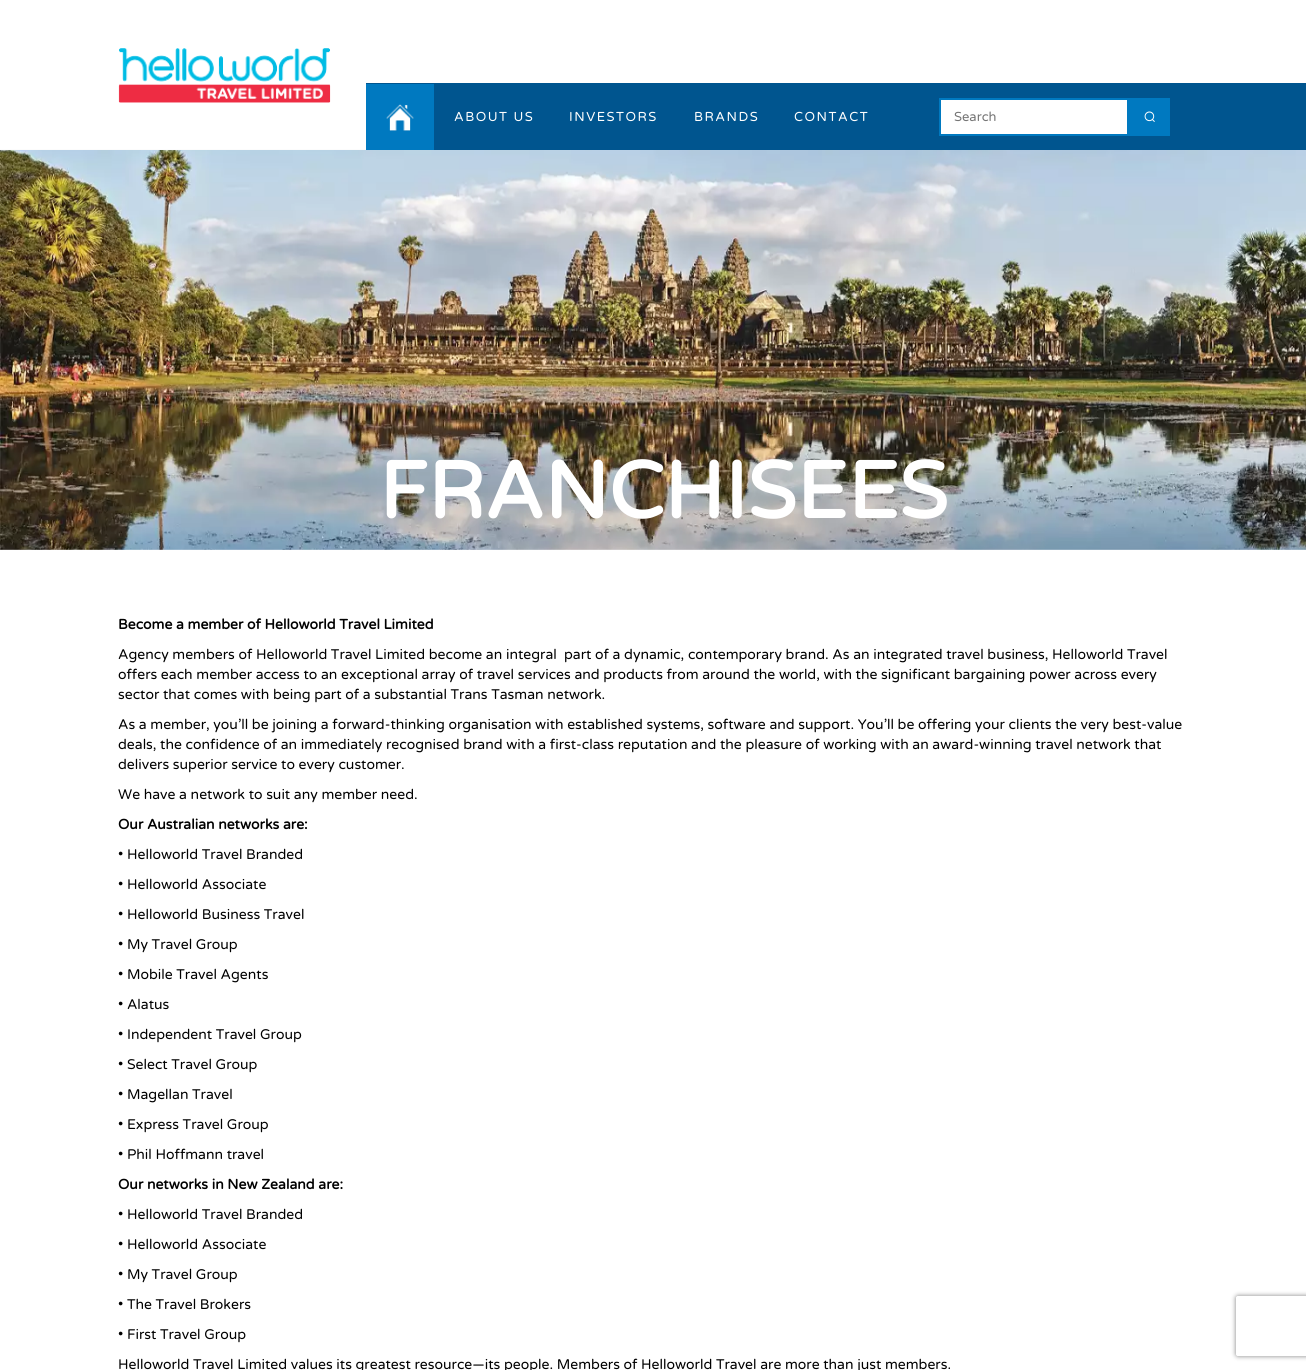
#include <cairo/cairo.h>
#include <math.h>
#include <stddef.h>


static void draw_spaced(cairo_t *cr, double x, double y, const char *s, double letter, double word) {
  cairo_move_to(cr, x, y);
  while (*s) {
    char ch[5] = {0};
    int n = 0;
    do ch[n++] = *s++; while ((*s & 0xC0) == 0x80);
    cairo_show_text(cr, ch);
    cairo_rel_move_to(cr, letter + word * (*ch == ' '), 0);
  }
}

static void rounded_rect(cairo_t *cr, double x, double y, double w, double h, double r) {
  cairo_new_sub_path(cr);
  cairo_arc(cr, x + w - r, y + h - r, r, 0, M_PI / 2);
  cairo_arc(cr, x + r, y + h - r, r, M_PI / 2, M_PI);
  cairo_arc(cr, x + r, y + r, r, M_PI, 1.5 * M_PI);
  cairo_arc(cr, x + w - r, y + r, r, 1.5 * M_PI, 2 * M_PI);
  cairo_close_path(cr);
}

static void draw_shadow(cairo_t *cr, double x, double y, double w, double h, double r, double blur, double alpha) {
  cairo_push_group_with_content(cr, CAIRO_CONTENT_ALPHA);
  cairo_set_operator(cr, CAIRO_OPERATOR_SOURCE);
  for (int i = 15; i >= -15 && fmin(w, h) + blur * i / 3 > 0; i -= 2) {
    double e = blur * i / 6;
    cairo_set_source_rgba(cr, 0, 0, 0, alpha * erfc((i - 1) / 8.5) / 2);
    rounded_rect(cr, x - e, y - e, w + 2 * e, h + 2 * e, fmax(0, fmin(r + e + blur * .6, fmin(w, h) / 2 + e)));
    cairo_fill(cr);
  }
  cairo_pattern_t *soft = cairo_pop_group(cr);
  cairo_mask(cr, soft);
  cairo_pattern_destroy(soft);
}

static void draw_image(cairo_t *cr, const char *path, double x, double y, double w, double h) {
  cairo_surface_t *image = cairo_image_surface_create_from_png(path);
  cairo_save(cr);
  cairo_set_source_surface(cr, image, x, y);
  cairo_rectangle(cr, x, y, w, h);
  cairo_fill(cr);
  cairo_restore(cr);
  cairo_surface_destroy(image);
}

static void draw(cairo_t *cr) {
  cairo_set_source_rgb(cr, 1, 1, 1);
  cairo_paint(cr);
  cairo_set_source_rgb(cr, 252 / 255.0, 252 / 255.0, 252 / 255.0);
  cairo_rectangle(cr, 0, 149, 366, 1);
  cairo_fill(cr);
  draw_image(cr, "images/1.png", 118, 48, 213, 55);
  cairo_set_source_rgb(cr, 0, 85 / 255.0, 143 / 255.0);
  cairo_rectangle(cr, 366, 83, 940, 67);
  cairo_fill(cr);
  cairo_set_source_rgb(cr, 0, 121 / 255.0, 192 / 255.0);
  cairo_rectangle(cr, 366, 84, 68, 66);
  cairo_fill(cr);
  draw_image(cr, "images/2.png", 386, 104, 28, 27);
  cairo_set_source_rgb(cr, 1, 1, 1);
  cairo_rectangle(cr, 940, 99, 188, 36);
  cairo_fill_preserve(cr);
  cairo_set_source_rgb(cr, 0, 121 / 255.0, 192 / 255.0);
  cairo_stroke(cr);
  cairo_rectangle(cr, 1129, 98, 41, 38);
  cairo_fill(cr);
  draw_image(cr, "images/3.png", 1144, 111, 11, 11);
  draw_image(cr, "images/4.png", 0, 150, 1306, 400);
  cairo_save(cr);
  cairo_set_fill_rule(cr, CAIRO_FILL_RULE_EVEN_ODD);
  cairo_new_path(cr);
  cairo_move_to(cr, 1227, 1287);
  cairo_line_to(cr, 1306, 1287);
  cairo_line_to(cr, 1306, 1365);
  cairo_line_to(cr, 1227, 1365);
  cairo_close_path(cr);
  cairo_move_to(cr, 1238, 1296);
  cairo_line_to(cr, 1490, 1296);
  cairo_curve_to(cr, 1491, 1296, 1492, 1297, 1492, 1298);
  cairo_line_to(cr, 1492, 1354);
  cairo_curve_to(cr, 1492, 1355, 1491, 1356, 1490, 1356);
  cairo_line_to(cr, 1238, 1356);
  cairo_curve_to(cr, 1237, 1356, 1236, 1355, 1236, 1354);
  cairo_line_to(cr, 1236, 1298);
  cairo_curve_to(cr, 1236, 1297, 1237, 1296, 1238, 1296);
  cairo_close_path(cr);
  cairo_clip(cr);
  cairo_set_source_rgb(cr, 128 / 255.0, 128 / 255.0, 128 / 255.0);
  draw_shadow(cr, 1236, 1296, 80, 60, 2, 2.5, 1);
  cairo_restore(cr);
  cairo_select_font_face(cr, "Varela Round", CAIRO_FONT_SLANT_NORMAL, CAIRO_FONT_WEIGHT_NORMAL);
  cairo_set_font_size(cr, 13);
  cairo_set_source_rgb(cr, 1, 1, 1);
  draw_spaced(cr, 454, 121, "ABOUT US", 1.5, 0);
  draw_spaced(cr, 569, 121, "INVESTORS", 1.5, 0);
  draw_spaced(cr, 694, 121, "BRANDS", 1.5, 0);
  draw_spaced(cr, 794, 121, "CONTACT", 1.5, 0);
  cairo_set_source_rgb(cr, 117 / 255.0, 117 / 255.0, 117 / 255.0);
  cairo_move_to(cr, 954, 121);
  cairo_show_text(cr, "Search");
  cairo_select_font_face(cr, "Varela Round", CAIRO_FONT_SLANT_NORMAL, CAIRO_FONT_WEIGHT_BOLD);
  cairo_set_font_size(cr, 80);
  cairo_set_source_rgb(cr, 1, 1, 1);
  cairo_move_to(cr, 379, 518);
  cairo_show_text(cr, "FRANCHISEES");
  cairo_set_font_size(cr, 14);
  cairo_set_source_rgb(cr, 0, 0, 0);
  cairo_move_to(cr, 118, 629);
  cairo_show_text(cr, "Become a member of Helloworld Travel Limited");
  cairo_select_font_face(cr, "Varela Round", CAIRO_FONT_SLANT_NORMAL, CAIRO_FONT_WEIGHT_NORMAL);
  cairo_move_to(cr, 118, 659);
  cairo_show_text(cr, "Agency members of Helloworld Travel Limited become an integral  part of a dynamic, contemporary brand. As an integrated travel business, Helloworld Travel");
  cairo_move_to(cr, 118, 679);
  cairo_show_text(cr, "offers each member access to an exceptional array of travel services and products from around the world, with the significant bargaining power across every");
  cairo_move_to(cr, 118, 699);
  cairo_show_text(cr, "sector that comes with being part of a substantial Trans Tasman network.");
  cairo_move_to(cr, 118, 729);
  cairo_show_text(cr, "As a member, you’ll be joining a forward-thinking organisation with established systems, software and support. You’ll be offering your clients the very best-value");
  cairo_move_to(cr, 118, 749);
  cairo_show_text(cr, "deals, the confidence of an immediately recognised brand with a first-class reputation and the pleasure of working with an award-winning travel network that");
  cairo_move_to(cr, 118, 769);
  cairo_show_text(cr, "delivers superior service to every customer.");
  cairo_move_to(cr, 118, 799);
  cairo_show_text(cr, "We have a network to suit any member need.");
  cairo_select_font_face(cr, "Varela Round", CAIRO_FONT_SLANT_NORMAL, CAIRO_FONT_WEIGHT_BOLD);
  cairo_move_to(cr, 118, 829);
  cairo_show_text(cr, "Our Australian networks are:");
  cairo_select_font_face(cr, "Varela Round", CAIRO_FONT_SLANT_NORMAL, CAIRO_FONT_WEIGHT_NORMAL);
  cairo_move_to(cr, 118, 859);
  cairo_show_text(cr, "• Helloworld Travel Branded");
  cairo_move_to(cr, 118, 889);
  cairo_show_text(cr, "• Helloworld Associate");
  cairo_move_to(cr, 118, 919);
  cairo_show_text(cr, "• Helloworld Business Travel");
  cairo_move_to(cr, 118, 949);
  cairo_show_text(cr, "• My Travel Group");
  cairo_move_to(cr, 118, 979);
  cairo_show_text(cr, "• Mobile Travel Agents");
  cairo_move_to(cr, 118, 1009);
  cairo_show_text(cr, "• Alatus");
  cairo_move_to(cr, 118, 1039);
  cairo_show_text(cr, "• Independent Travel Group");
  cairo_move_to(cr, 118, 1069);
  cairo_show_text(cr, "• Select Travel Group");
  cairo_move_to(cr, 118, 1099);
  cairo_show_text(cr, "• Magellan Travel");
  cairo_move_to(cr, 118, 1129);
  cairo_show_text(cr, "• Express Travel Group");
  cairo_move_to(cr, 118, 1159);
  cairo_show_text(cr, "• Phil Hoffmann travel");
  cairo_select_font_face(cr, "Varela Round", CAIRO_FONT_SLANT_NORMAL, CAIRO_FONT_WEIGHT_BOLD);
  cairo_move_to(cr, 118, 1189);
  cairo_show_text(cr, "Our networks in New Zealand are:");
  cairo_select_font_face(cr, "Varela Round", CAIRO_FONT_SLANT_NORMAL, CAIRO_FONT_WEIGHT_NORMAL);
  cairo_move_to(cr, 118, 1219);
  cairo_show_text(cr, "• Helloworld Travel Branded");
  cairo_move_to(cr, 118, 1249);
  cairo_show_text(cr, "• Helloworld Associate");
  cairo_move_to(cr, 118, 1279);
  cairo_show_text(cr, "• My Travel Group");
  cairo_move_to(cr, 118, 1309);
  cairo_show_text(cr, "• The Travel Brokers");
  cairo_move_to(cr, 118, 1339);
  cairo_show_text(cr, "• First Travel Group");
  cairo_move_to(cr, 118, 1369);
  cairo_show_text(cr, "Helloworld Travel Limited values its greatest resource—its people. Members of Helloworld Travel are more than just members.");
}

int main(void) {
  cairo_surface_t *surface = cairo_image_surface_create(CAIRO_FORMAT_RGB24, 1306, 1370);
  cairo_t *cr = cairo_create(surface);
  cairo_font_options_t *options = cairo_font_options_create();
  cairo_font_options_set_hint_metrics(options, CAIRO_HINT_METRICS_OFF);
  cairo_font_options_set_hint_style(options, CAIRO_HINT_STYLE_NONE);
  cairo_set_font_options(cr, options);
  cairo_set_miter_limit(cr, 4);
  draw(cr);
  cairo_surface_write_to_png(surface, "out.png");
  cairo_font_options_destroy(options);
  cairo_destroy(cr);
  cairo_surface_destroy(surface);
  return 0;
}
